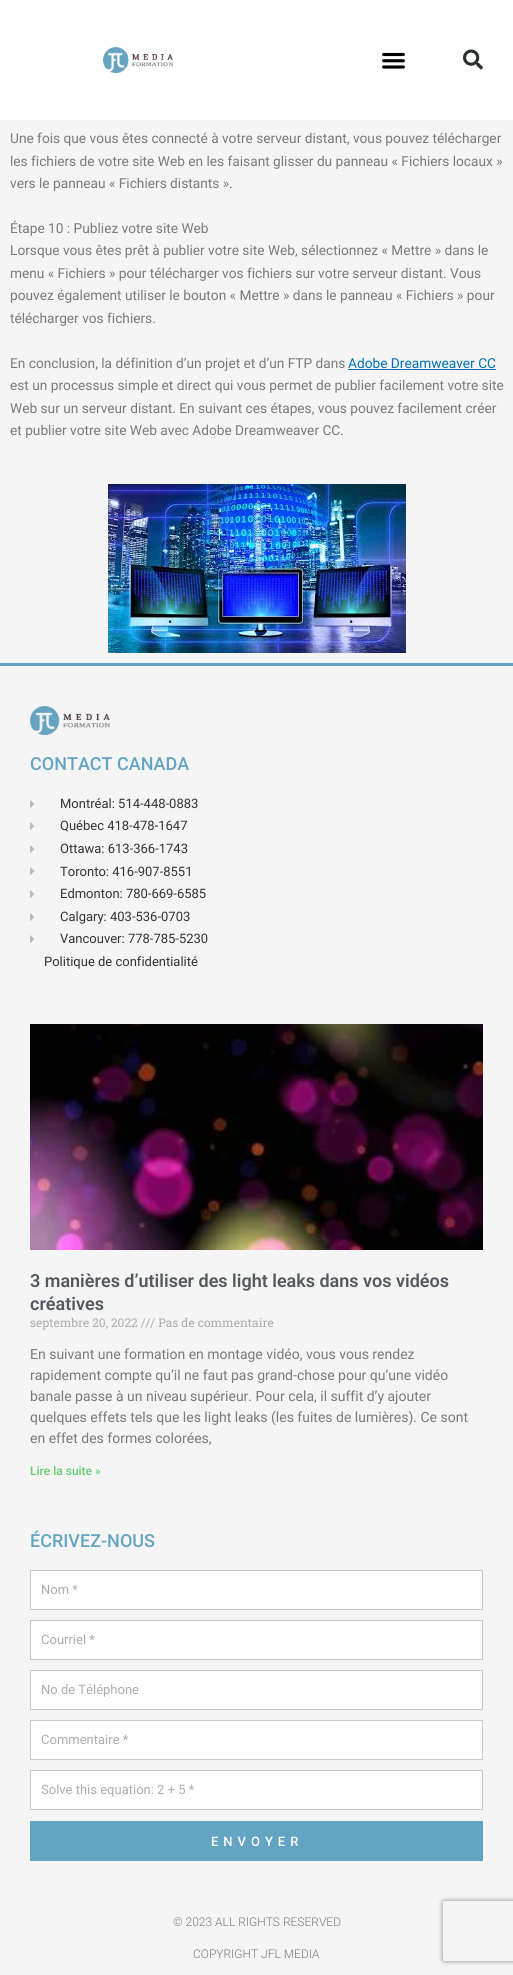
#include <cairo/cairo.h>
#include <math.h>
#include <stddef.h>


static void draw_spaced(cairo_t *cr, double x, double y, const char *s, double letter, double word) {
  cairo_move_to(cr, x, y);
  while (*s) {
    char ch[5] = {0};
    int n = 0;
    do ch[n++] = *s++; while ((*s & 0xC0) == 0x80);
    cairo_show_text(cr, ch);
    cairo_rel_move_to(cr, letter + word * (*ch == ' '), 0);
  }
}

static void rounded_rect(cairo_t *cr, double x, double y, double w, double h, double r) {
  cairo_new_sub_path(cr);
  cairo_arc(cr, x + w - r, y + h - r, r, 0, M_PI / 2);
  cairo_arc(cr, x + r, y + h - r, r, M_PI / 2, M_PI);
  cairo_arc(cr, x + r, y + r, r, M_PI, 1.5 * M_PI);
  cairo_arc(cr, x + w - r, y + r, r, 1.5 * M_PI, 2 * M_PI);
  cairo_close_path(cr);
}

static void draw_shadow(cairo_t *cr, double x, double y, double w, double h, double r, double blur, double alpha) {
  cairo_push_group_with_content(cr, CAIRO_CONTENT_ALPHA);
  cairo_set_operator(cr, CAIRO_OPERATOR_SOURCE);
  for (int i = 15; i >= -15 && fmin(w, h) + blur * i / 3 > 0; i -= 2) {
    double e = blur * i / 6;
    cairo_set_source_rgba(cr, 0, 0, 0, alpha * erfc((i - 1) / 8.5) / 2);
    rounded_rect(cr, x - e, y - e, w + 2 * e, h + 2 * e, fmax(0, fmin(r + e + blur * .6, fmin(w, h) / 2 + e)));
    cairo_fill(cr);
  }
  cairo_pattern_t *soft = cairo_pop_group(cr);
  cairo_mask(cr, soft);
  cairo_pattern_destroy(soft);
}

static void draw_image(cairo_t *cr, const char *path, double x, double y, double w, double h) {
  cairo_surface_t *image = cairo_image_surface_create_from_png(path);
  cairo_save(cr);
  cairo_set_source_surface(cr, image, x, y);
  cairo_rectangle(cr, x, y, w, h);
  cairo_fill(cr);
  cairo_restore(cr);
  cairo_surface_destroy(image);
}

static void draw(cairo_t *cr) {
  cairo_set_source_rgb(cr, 245 / 255.0, 245 / 255.0, 245 / 255.0);
  cairo_paint(cr);
  cairo_set_source_rgb(cr, 1, 1, 1);
  cairo_rectangle(cr, 0, 0, 513, 120);
  cairo_fill(cr);
  draw_image(cr, "images/1.png", 103, 47, 70, 26);
  draw_image(cr, "images/2.png", 382, 52, 23, 17);
  draw_image(cr, "images/3.png", 463, 49, 20, 21);
  cairo_set_source_rgb(cr, 1 / 255.0, 112 / 255.0, 185 / 255.0);
  cairo_rectangle(cr, 348, 369, 148, 1);
  cairo_fill(cr);
  draw_image(cr, "images/4.png", 108, 484, 298, 169);
  cairo_set_source_rgb(cr, 100 / 255.0, 164 / 255.0, 195 / 255.0);
  cairo_rectangle(cr, 0, 663, 513, 3);
  cairo_fill(cr);
  draw_image(cr, "images/5.png", 30, 706, 80, 29);
  draw_image(cr, "images/6.png", 30, 800, 5, 8);
  draw_image(cr, "images/6.png", 30, 822, 5, 8);
  draw_image(cr, "images/6.png", 30, 845, 5, 8);
  draw_image(cr, "images/6.png", 30, 867, 5, 8);
  draw_image(cr, "images/6.png", 30, 890, 5, 8);
  draw_image(cr, "images/6.png", 30, 913, 5, 8);
  draw_image(cr, "images/6.png", 30, 935, 5, 8);
  draw_image(cr, "images/7.png", 30, 1024, 453, 226);
  cairo_set_source_rgb(cr, 1, 1, 1);
  cairo_rectangle(cr, 30.5, 1570.5, 452, 39);
  cairo_fill_preserve(cr);
  cairo_set_source_rgb(cr, 201 / 255.0, 201 / 255.0, 201 / 255.0);
  cairo_set_line_width(cr, 1);
  cairo_stroke(cr);
  cairo_set_source_rgb(cr, 1, 1, 1);
  cairo_rectangle(cr, 30.5, 1620.5, 452, 39);
  cairo_fill_preserve(cr);
  cairo_set_source_rgb(cr, 201 / 255.0, 201 / 255.0, 201 / 255.0);
  cairo_stroke(cr);
  cairo_set_source_rgb(cr, 1, 1, 1);
  cairo_rectangle(cr, 30.5, 1670.5, 452, 39);
  cairo_fill_preserve(cr);
  cairo_set_source_rgb(cr, 201 / 255.0, 201 / 255.0, 201 / 255.0);
  cairo_stroke(cr);
  cairo_set_source_rgb(cr, 1, 1, 1);
  cairo_rectangle(cr, 30.5, 1720.5, 452, 39);
  cairo_fill_preserve(cr);
  cairo_set_source_rgb(cr, 201 / 255.0, 201 / 255.0, 201 / 255.0);
  cairo_stroke(cr);
  cairo_set_source_rgb(cr, 1, 1, 1);
  cairo_rectangle(cr, 30.5, 1770.5, 452, 39);
  cairo_fill_preserve(cr);
  cairo_set_source_rgb(cr, 201 / 255.0, 201 / 255.0, 201 / 255.0);
  cairo_stroke(cr);
  cairo_set_source_rgb(cr, 100 / 255.0, 164 / 255.0, 195 / 255.0);
  cairo_rectangle(cr, 30, 1821, 453, 40);
  cairo_fill(cr);
  cairo_save(cr);
  cairo_set_fill_rule(cr, CAIRO_FILL_RULE_EVEN_ODD);
  cairo_new_path(cr);
  cairo_move_to(cr, 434, 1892);
  cairo_line_to(cr, 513, 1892);
  cairo_line_to(cr, 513, 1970);
  cairo_line_to(cr, 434, 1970);
  cairo_close_path(cr);
  cairo_move_to(cr, 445, 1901);
  cairo_line_to(cr, 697, 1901);
  cairo_curve_to(cr, 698, 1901, 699, 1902, 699, 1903);
  cairo_line_to(cr, 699, 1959);
  cairo_curve_to(cr, 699, 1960, 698, 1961, 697, 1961);
  cairo_line_to(cr, 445, 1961);
  cairo_curve_to(cr, 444, 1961, 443, 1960, 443, 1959);
  cairo_line_to(cr, 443, 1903);
  cairo_curve_to(cr, 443, 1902, 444, 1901, 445, 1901);
  cairo_close_path(cr);
  cairo_clip(cr);
  cairo_set_source_rgb(cr, 128 / 255.0, 128 / 255.0, 128 / 255.0);
  draw_shadow(cr, 443, 1901, 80, 60, 2, 2.5, 1);
  cairo_restore(cr);
  cairo_select_font_face(cr, "Roboto", CAIRO_FONT_SLANT_NORMAL, CAIRO_FONT_WEIGHT_NORMAL);
  cairo_set_font_size(cr, 13.7);
  cairo_set_source_rgb(cr, 122 / 255.0, 122 / 255.0, 122 / 255.0);
  cairo_move_to(cr, 10, 143);
  cairo_show_text(cr, "Une fois que vous êtes connecté à votre serveur distant, vous pouvez télécharger");
  cairo_move_to(cr, 10, 166);
  cairo_show_text(cr, "les fichiers de votre site Web en les faisant glisser du panneau « Fichiers locaux »");
  cairo_move_to(cr, 10, 188);
  cairo_show_text(cr, "vers le panneau « Fichiers distants ».");
  cairo_move_to(cr, 10, 233);
  cairo_show_text(cr, "Étape 10 : Publiez votre site Web");
  cairo_move_to(cr, 10, 255);
  cairo_show_text(cr, "Lorsque vous êtes prêt à publier votre site Web, sélectionnez « Mettre » dans le");
  cairo_move_to(cr, 10, 278);
  cairo_show_text(cr, "menu « Fichiers » pour télécharger vos fichiers sur votre serveur distant. Vous");
  cairo_move_to(cr, 10, 300);
  cairo_show_text(cr, "pouvez également utiliser le bouton « Mettre » dans le panneau « Fichiers » pour");
  cairo_move_to(cr, 10, 323);
  cairo_show_text(cr, "télécharger vos fichiers.");
  cairo_move_to(cr, 10, 368);
  cairo_show_text(cr, "En conclusion, la définition d’un projet et d’un FTP dans");
  cairo_set_source_rgb(cr, 1 / 255.0, 112 / 255.0, 185 / 255.0);
  cairo_move_to(cr, 348, 368);
  cairo_show_text(cr, "Adobe Dreamweaver CC");
  cairo_set_source_rgb(cr, 122 / 255.0, 122 / 255.0, 122 / 255.0);
  cairo_move_to(cr, 10, 390);
  cairo_show_text(cr, "est un processus simple et direct qui vous permet de publier facilement votre site");
  cairo_move_to(cr, 10, 413);
  cairo_show_text(cr, "Web sur un serveur distant. En suivant ces étapes, vous pouvez facilement créer");
  cairo_move_to(cr, 10, 435);
  cairo_show_text(cr, "et publier votre site Web avec Adobe Dreamweaver CC.");
  cairo_select_font_face(cr, "Roboto Medium", CAIRO_FONT_SLANT_NORMAL, CAIRO_FONT_WEIGHT_NORMAL);
  cairo_set_font_size(cr, 18);
  cairo_set_source_rgb(cr, 100 / 255.0, 164 / 255.0, 195 / 255.0);
  cairo_move_to(cr, 30, 770);
  cairo_show_text(cr, "CONTACT CANADA");
  cairo_select_font_face(cr, "Roboto", CAIRO_FONT_SLANT_NORMAL, CAIRO_FONT_WEIGHT_NORMAL);
  cairo_set_font_size(cr, 13);
  cairo_set_source_rgb(cr, 51 / 255.0, 51 / 255.0, 51 / 255.0);
  cairo_move_to(cr, 60, 808);
  cairo_show_text(cr, "Montréal: 514-448-0883");
  cairo_move_to(cr, 60, 830);
  cairo_show_text(cr, "Québec 418-478-1647");
  cairo_move_to(cr, 60, 853);
  cairo_show_text(cr, "Ottawa: 613-366-1743");
  cairo_move_to(cr, 60, 876);
  cairo_show_text(cr, "Toronto: 416-907-8551");
  cairo_move_to(cr, 60, 898);
  cairo_show_text(cr, "Edmonton: 780-669-6585");
  cairo_move_to(cr, 60, 921);
  cairo_show_text(cr, "Calgary: 403-536-0703");
  cairo_move_to(cr, 60, 943);
  cairo_show_text(cr, "Vancouver: 778-785-5230");
  cairo_move_to(cr, 44, 966);
  cairo_show_text(cr, "Politique de confidentialité");
  cairo_select_font_face(cr, "Roboto SemiBold", CAIRO_FONT_SLANT_NORMAL, CAIRO_FONT_WEIGHT_NORMAL);
  cairo_set_font_size(cr, 18);
  cairo_set_source_rgb(cr, 84 / 255.0, 89 / 255.0, 95 / 255.0);
  cairo_move_to(cr, 30, 1287);
  cairo_show_text(cr, "3 manières d’utiliser des light leaks dans vos vidéos");
  cairo_move_to(cr, 30, 1310);
  cairo_show_text(cr, "créatives");
  cairo_select_font_face(cr, "Roboto Slab", CAIRO_FONT_SLANT_NORMAL, CAIRO_FONT_WEIGHT_NORMAL);
  cairo_set_font_size(cr, 12);
  cairo_set_source_rgb(cr, 173 / 255.0, 173 / 255.0, 173 / 255.0);
  cairo_move_to(cr, 30, 1327);
  cairo_show_text(cr, "septembre 20, 2022 /// Pas de commentaire");
  cairo_select_font_face(cr, "Roboto", CAIRO_FONT_SLANT_NORMAL, CAIRO_FONT_WEIGHT_NORMAL);
  cairo_set_font_size(cr, 14);
  cairo_set_source_rgb(cr, 122 / 255.0, 122 / 255.0, 122 / 255.0);
  cairo_move_to(cr, 30, 1359);
  cairo_show_text(cr, "En suivant une formation en montage vidéo, vous vous rendez");
  cairo_move_to(cr, 30, 1380);
  cairo_show_text(cr, "rapidement compte qu’il ne faut pas grand-chose pour qu’une vidéo");
  cairo_move_to(cr, 30, 1401);
  cairo_show_text(cr, "banale passe à un niveau supérieur. Pour cela, il suffit d’y ajouter");
  cairo_move_to(cr, 30, 1422);
  cairo_show_text(cr, "quelques effets tels que les light leaks (les fuites de lumières). Ce sont");
  cairo_move_to(cr, 30, 1443);
  cairo_show_text(cr, "en effet des formes colorées,");
  cairo_select_font_face(cr, "Roboto Medium", CAIRO_FONT_SLANT_NORMAL, CAIRO_FONT_WEIGHT_NORMAL);
  cairo_set_font_size(cr, 12);
  cairo_set_source_rgb(cr, 97 / 255.0, 206 / 255.0, 112 / 255.0);
  cairo_move_to(cr, 30, 1475);
  cairo_show_text(cr, "Lire la suite »");
  cairo_set_font_size(cr, 18);
  cairo_set_source_rgb(cr, 100 / 255.0, 164 / 255.0, 195 / 255.0);
  cairo_move_to(cr, 30, 1547);
  cairo_show_text(cr, "ÉCRIVEZ-NOUS");
  cairo_select_font_face(cr, "Roboto", CAIRO_FONT_SLANT_NORMAL, CAIRO_FONT_WEIGHT_NORMAL);
  cairo_set_font_size(cr, 13);
  cairo_set_source_rgb(cr, 173 / 255.0, 173 / 255.0, 173 / 255.0);
  cairo_move_to(cr, 41, 1594);
  cairo_show_text(cr, "Nom *");
  cairo_move_to(cr, 41, 1644);
  cairo_show_text(cr, "Courriel *");
  cairo_move_to(cr, 41, 1694);
  cairo_show_text(cr, "No de Téléphone");
  cairo_move_to(cr, 41, 1744);
  cairo_show_text(cr, "Commentaire *");
  cairo_move_to(cr, 41, 1794);
  cairo_show_text(cr, "Solve this equation: 2 + 5 *");
  cairo_select_font_face(cr, "Roboto Medium", CAIRO_FONT_SLANT_NORMAL, CAIRO_FONT_WEIGHT_NORMAL);
  cairo_set_source_rgb(cr, 1, 1, 1);
  draw_spaced(cr, 211, 1846, "ENVOYER", 5, 0);
  cairo_select_font_face(cr, "Roboto Light", CAIRO_FONT_SLANT_NORMAL, CAIRO_FONT_WEIGHT_NORMAL);
  cairo_set_font_size(cr, 12);
  cairo_set_source_rgb(cr, 122 / 255.0, 122 / 255.0, 122 / 255.0);
  cairo_move_to(cr, 173, 1926);
  cairo_show_text(cr, "© 2023 ALL RIGHTS RESERVED");
  cairo_move_to(cr, 193, 1958);
  cairo_show_text(cr, "COPYRIGHT JFL MEDIA");
}

int main(void) {
  cairo_surface_t *surface = cairo_image_surface_create(CAIRO_FORMAT_RGB24, 513, 1975);
  cairo_t *cr = cairo_create(surface);
  cairo_font_options_t *options = cairo_font_options_create();
  cairo_font_options_set_hint_metrics(options, CAIRO_HINT_METRICS_OFF);
  cairo_font_options_set_hint_style(options, CAIRO_HINT_STYLE_NONE);
  cairo_set_font_options(cr, options);
  cairo_set_miter_limit(cr, 4);
  draw(cr);
  cairo_surface_write_to_png(surface, "out.png");
  cairo_font_options_destroy(options);
  cairo_destroy(cr);
  cairo_surface_destroy(surface);
  return 0;
}
